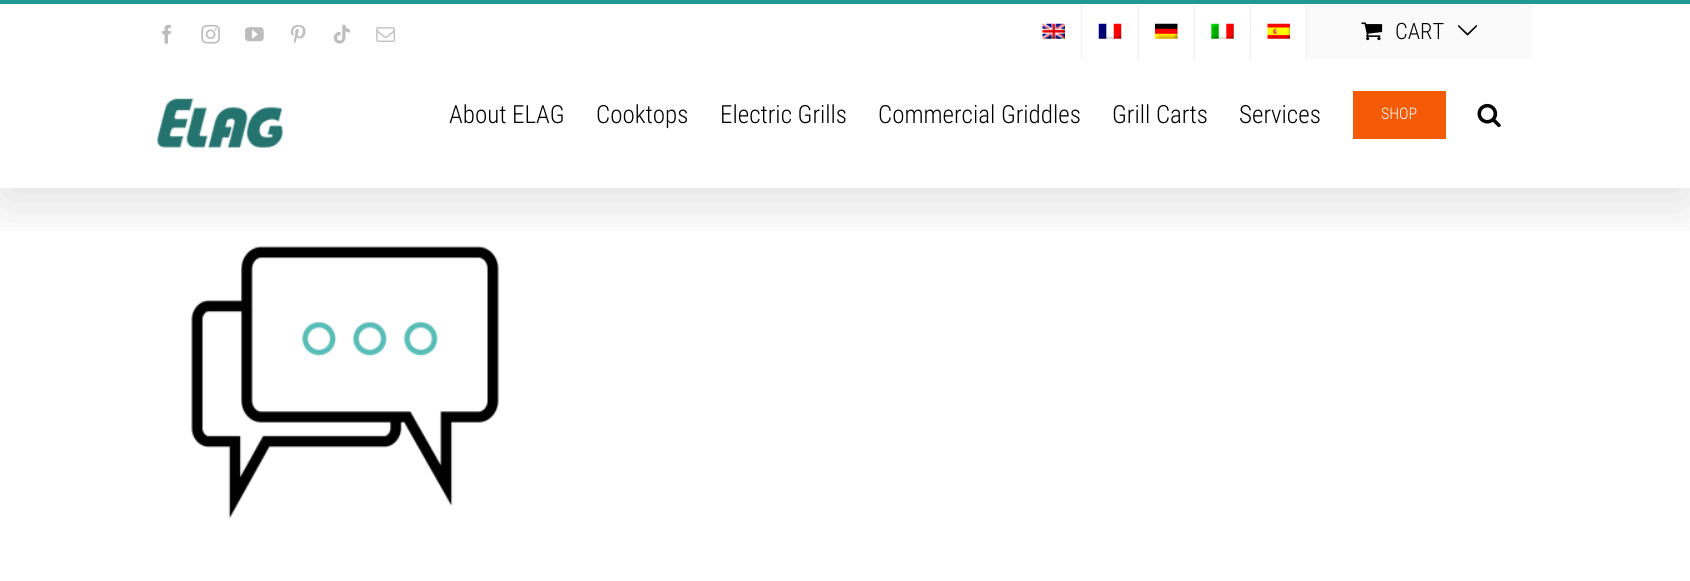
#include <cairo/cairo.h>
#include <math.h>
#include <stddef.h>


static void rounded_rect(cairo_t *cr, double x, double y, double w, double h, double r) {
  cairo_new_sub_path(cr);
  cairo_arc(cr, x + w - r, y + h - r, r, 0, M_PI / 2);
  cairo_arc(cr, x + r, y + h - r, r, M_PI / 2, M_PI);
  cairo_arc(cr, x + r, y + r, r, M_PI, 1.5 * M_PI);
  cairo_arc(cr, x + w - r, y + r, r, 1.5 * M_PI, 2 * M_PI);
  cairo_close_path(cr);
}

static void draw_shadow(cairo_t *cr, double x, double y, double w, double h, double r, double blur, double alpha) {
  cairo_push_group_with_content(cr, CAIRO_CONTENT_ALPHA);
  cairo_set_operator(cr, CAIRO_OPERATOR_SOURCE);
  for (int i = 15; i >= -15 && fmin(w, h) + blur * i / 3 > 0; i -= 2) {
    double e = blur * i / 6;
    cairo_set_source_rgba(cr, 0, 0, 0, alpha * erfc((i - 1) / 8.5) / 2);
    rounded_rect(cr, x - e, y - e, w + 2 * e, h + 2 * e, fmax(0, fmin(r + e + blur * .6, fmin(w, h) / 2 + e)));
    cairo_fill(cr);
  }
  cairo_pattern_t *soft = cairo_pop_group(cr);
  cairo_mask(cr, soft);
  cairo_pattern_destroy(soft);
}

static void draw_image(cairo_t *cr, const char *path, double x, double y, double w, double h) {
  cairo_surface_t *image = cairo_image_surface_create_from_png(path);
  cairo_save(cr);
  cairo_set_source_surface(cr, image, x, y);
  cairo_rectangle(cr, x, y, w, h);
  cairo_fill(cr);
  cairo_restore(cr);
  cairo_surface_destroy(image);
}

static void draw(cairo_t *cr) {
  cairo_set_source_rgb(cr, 1, 1, 1);
  cairo_paint(cr);
  draw_image(cr, "images/16.png", 191, 246, 308, 272);
  cairo_save(cr);
  cairo_rectangle(cr, 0, 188, 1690, 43);
  cairo_clip(cr);
  cairo_set_source_rgb(cr, 0, 0, 0);
  draw_shadow(cr, 3, 15, 1685, 183, 0, 31, 0.14);
  cairo_restore(cr);
  cairo_set_source_rgb(cr, 31 / 255.0, 153 / 255.0, 145 / 255.0);
  cairo_rectangle(cr, 0, 0, 1690, 4);
  cairo_fill(cr);
  draw_image(cr, "images/1.png", 162, 24, 9, 20);
  draw_image(cr, "images/2.png", 201, 24, 19, 20);
  draw_image(cr, "images/3.png", 245, 27, 19, 15);
  draw_image(cr, "images/4.png", 291, 24, 15, 20);
  draw_image(cr, "images/5.png", 333, 24, 17, 20);
  draw_image(cr, "images/6.png", 376, 27, 19, 15);
  draw_image(cr, "images/7.png", 1042, 23, 23, 16);
  cairo_set_source_rgb(cr, 239 / 255.0, 239 / 255.0, 239 / 255.0);
  cairo_rectangle(cr, 1081, 4, 1, 55);
  cairo_fill(cr);
  draw_image(cr, "images/8.png", 1098, 23, 24, 16);
  cairo_rectangle(cr, 1138, 4, 1, 55);
  cairo_fill(cr);
  draw_image(cr, "images/9.png", 1155, 23, 23, 16);
  cairo_rectangle(cr, 1194, 4, 1, 55);
  cairo_fill(cr);
  draw_image(cr, "images/10.png", 1211, 23, 23, 16);
  cairo_rectangle(cr, 1250, 4, 1, 55);
  cairo_fill(cr);
  draw_image(cr, "images/11.png", 1267, 23, 23, 16);
  cairo_rectangle(cr, 1306, 4, 1, 55);
  cairo_fill(cr);
  cairo_set_source_rgb(cr, 250 / 255.0, 250 / 255.0, 250 / 255.0);
  cairo_rectangle(cr, 1308, 4, 225, 55);
  cairo_fill(cr);
  draw_image(cr, "images/12.png", 1361, 22, 22, 19);
  draw_image(cr, "images/13.png", 1457, 25, 21, 11);
  cairo_set_source_rgb(cr, 1, 1, 1);
  cairo_rectangle(cr, 0, 187, 1690, 1);
  cairo_fill(cr);
  draw_image(cr, "images/14.png", 157, 98, 126, 50);
  cairo_set_source_rgb(cr, 245 / 255.0, 91 / 255.0, 7 / 255.0);
  cairo_rectangle(cr, 1353, 91, 93, 48);
  cairo_fill(cr);
  draw_image(cr, "images/15.png", 1477, 103, 24, 25);
  cairo_select_font_face(cr, "Roboto Condensed Light", CAIRO_FONT_SLANT_NORMAL, CAIRO_FONT_WEIGHT_NORMAL);
  cairo_set_font_size(cr, 22.5);
  cairo_set_source_rgb(cr, 0, 0, 0);
  cairo_move_to(cr, 1395, 39);
  cairo_show_text(cr, "CART");
  cairo_set_font_size(cr, 25);
  cairo_move_to(cr, 449, 123);
  cairo_show_text(cr, "About ELAG");
  cairo_move_to(cr, 596, 123);
  cairo_show_text(cr, "Cooktops");
  cairo_move_to(cr, 720, 123);
  cairo_show_text(cr, "Electric Grills");
  cairo_move_to(cr, 878, 123);
  cairo_show_text(cr, "Commercial Griddles");
  cairo_move_to(cr, 1112, 123);
  cairo_show_text(cr, "Grill Carts");
  cairo_move_to(cr, 1239, 123);
  cairo_show_text(cr, "Services");
  cairo_set_font_size(cr, 16);
  cairo_set_source_rgb(cr, 1, 1, 1);
  cairo_move_to(cr, 1381, 119);
  cairo_show_text(cr, "SHOP");
}

int main(void) {
  cairo_surface_t *surface = cairo_image_surface_create(CAIRO_FORMAT_RGB24, 1690, 581);
  cairo_t *cr = cairo_create(surface);
  cairo_font_options_t *options = cairo_font_options_create();
  cairo_font_options_set_hint_metrics(options, CAIRO_HINT_METRICS_OFF);
  cairo_font_options_set_hint_style(options, CAIRO_HINT_STYLE_NONE);
  cairo_set_font_options(cr, options);
  cairo_set_miter_limit(cr, 4);
  draw(cr);
  cairo_surface_write_to_png(surface, "out.png");
  cairo_font_options_destroy(options);
  cairo_destroy(cr);
  cairo_surface_destroy(surface);
  return 0;
}
